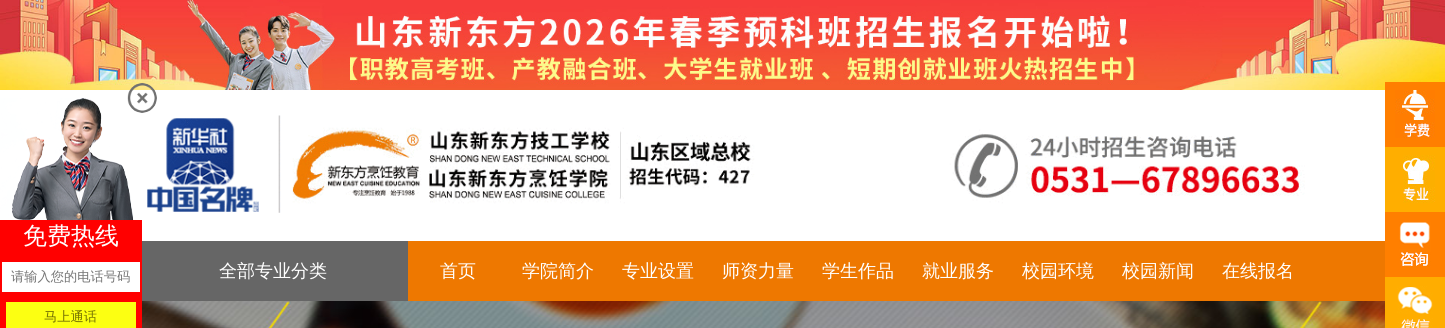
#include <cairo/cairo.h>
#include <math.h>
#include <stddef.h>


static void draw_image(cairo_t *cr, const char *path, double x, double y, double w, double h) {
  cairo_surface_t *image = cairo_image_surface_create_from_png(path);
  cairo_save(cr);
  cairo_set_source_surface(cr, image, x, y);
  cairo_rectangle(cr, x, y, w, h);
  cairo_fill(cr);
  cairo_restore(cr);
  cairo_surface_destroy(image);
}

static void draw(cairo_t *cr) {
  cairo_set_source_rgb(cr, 1, 1, 1);
  cairo_paint(cr);
  draw_image(cr, "images/1.png", 0, 0, 1445, 90);
  draw_image(cr, "images/2.png", 0, 98, 142, 230);
  draw_image(cr, "images/3.png", 127, 83, 30, 30);
  cairo_set_source_rgb(cr, 1, 1, 1);
  cairo_rectangle(cr, 2, 262, 138, 30);
  cairo_fill(cr);
  cairo_set_source_rgb(cr, 252 / 255.0, 1, 18 / 255.0);
  cairo_rectangle(cr, 6, 302, 130, 26);
  cairo_fill(cr);
  draw_image(cr, "images/4.png", 147, 115, 1158, 98);
  cairo_set_source_rgb(cr, 238 / 255.0, 120 / 255.0, 0);
  cairo_rectangle(cr, 408, 241, 977, 60);
  cairo_fill(cr);
  cairo_set_source_rgb(cr, 102 / 255.0, 102 / 255.0, 102 / 255.0);
  cairo_rectangle(cr, 142, 241, 266, 60);
  cairo_fill(cr);
  cairo_set_source_rgb(cr, 1, 127 / 255.0, 0);
  cairo_rectangle(cr, 1385, 82, 60, 65);
  cairo_fill(cr);
  draw_image(cr, "images/5.png", 1395, 90, 40, 48);
  cairo_set_source_rgb(cr, 1, 174 / 255.0, 0);
  cairo_rectangle(cr, 1385, 147, 60, 65);
  cairo_fill(cr);
  draw_image(cr, "images/6.png", 1403, 155, 32, 48);
  cairo_set_source_rgb(cr, 1, 127 / 255.0, 0);
  cairo_rectangle(cr, 1385, 212, 60, 65);
  cairo_fill(cr);
  draw_image(cr, "images/7.png", 1399, 222, 32, 45);
  cairo_set_source_rgb(cr, 1, 173 / 255.0, 0);
  cairo_rectangle(cr, 1385, 277, 60, 51);
  cairo_fill(cr);
  draw_image(cr, "images/8.png", 1397, 286, 36, 42);
  draw_image(cr, "images/9.png", 142, 301, 1243, 27);
  cairo_select_font_face(cr, "WenQuanYi Zen Hei Medium", CAIRO_FONT_SLANT_NORMAL, CAIRO_FONT_WEIGHT_NORMAL);
  cairo_set_font_size(cr, 24);
  cairo_set_source_rgb(cr, 1, 1, 1);
  cairo_move_to(cr, 23, 244);
  cairo_show_text(cr, "免费热线");
  cairo_set_font_size(cr, 13.25);
  cairo_set_source_rgb(cr, 117 / 255.0, 117 / 255.0, 117 / 255.0);
  cairo_move_to(cr, 11, 281);
  cairo_show_text(cr, "请输入您的电话号码");
  cairo_set_source_rgb(cr, 115 / 255.0, 112 / 255.0, 2 / 255.0);
  cairo_move_to(cr, 44, 321);
  cairo_show_text(cr, "马上通话");
  cairo_set_font_size(cr, 18);
  cairo_set_source_rgb(cr, 1, 1, 1);
  cairo_move_to(cr, 219, 277);
  cairo_show_text(cr, "全部专业分类");
  cairo_move_to(cr, 440, 277);
  cairo_show_text(cr, "首页");
  cairo_move_to(cr, 522, 277);
  cairo_show_text(cr, "学院简介");
  cairo_move_to(cr, 622, 277);
  cairo_show_text(cr, "专业设置");
  cairo_move_to(cr, 722, 277);
  cairo_show_text(cr, "师资力量");
  cairo_move_to(cr, 822, 277);
  cairo_show_text(cr, "学生作品");
  cairo_move_to(cr, 922, 277);
  cairo_show_text(cr, "就业服务");
  cairo_move_to(cr, 1022, 277);
  cairo_show_text(cr, "校园环境");
  cairo_move_to(cr, 1122, 277);
  cairo_show_text(cr, "校园新闻");
  cairo_move_to(cr, 1222, 277);
  cairo_show_text(cr, "在线报名");
}

int main(void) {
  cairo_surface_t *surface = cairo_image_surface_create(CAIRO_FORMAT_RGB24, 1445, 328);
  cairo_t *cr = cairo_create(surface);
  cairo_font_options_t *options = cairo_font_options_create();
  cairo_font_options_set_hint_metrics(options, CAIRO_HINT_METRICS_OFF);
  cairo_font_options_set_hint_style(options, CAIRO_HINT_STYLE_NONE);
  cairo_set_font_options(cr, options);
  cairo_set_miter_limit(cr, 4);
  draw(cr);
  cairo_surface_write_to_png(surface, "out.png");
  cairo_font_options_destroy(options);
  cairo_destroy(cr);
  cairo_surface_destroy(surface);
  return 0;
}
